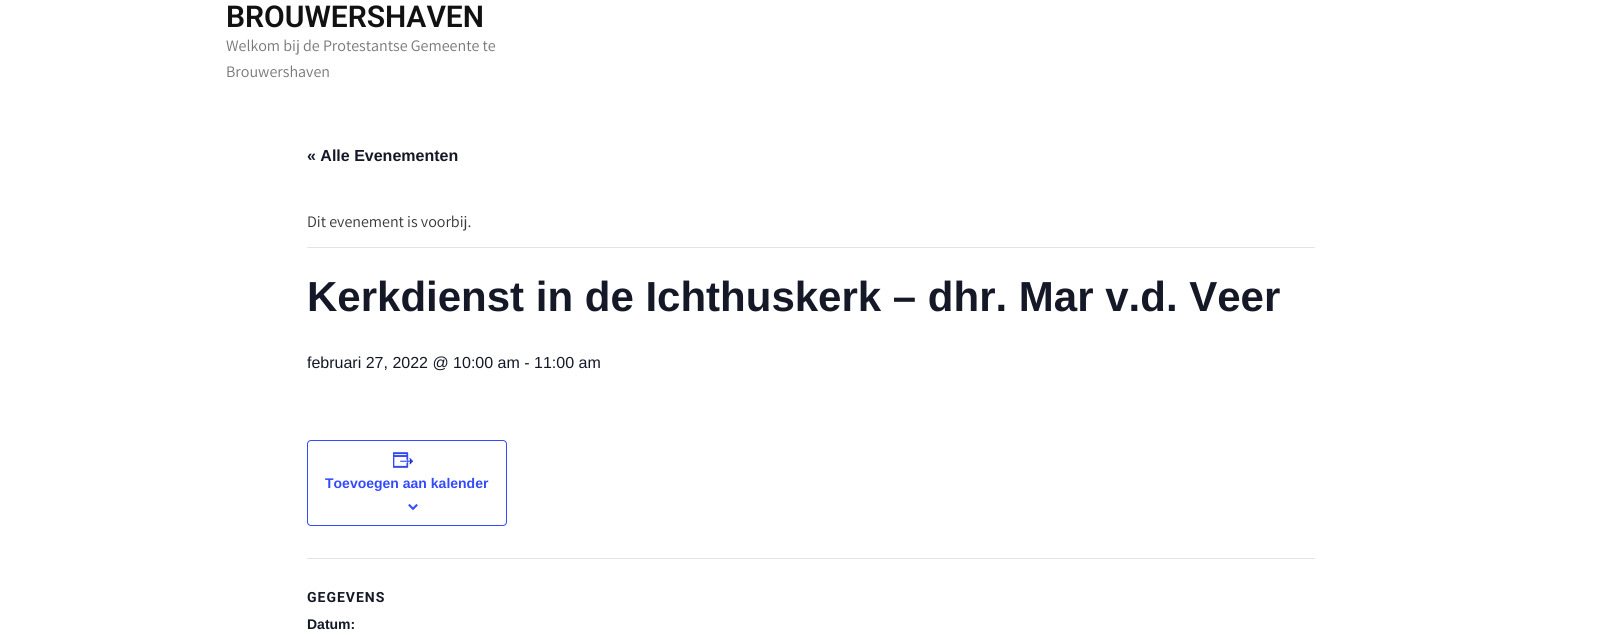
#include <cairo/cairo.h>
#include <math.h>
#include <stddef.h>


static void draw_spaced(cairo_t *cr, double x, double y, const char *s, double letter, double word) {
  cairo_move_to(cr, x, y);
  while (*s) {
    char ch[5] = {0};
    int n = 0;
    do ch[n++] = *s++; while ((*s & 0xC0) == 0x80);
    cairo_show_text(cr, ch);
    cairo_rel_move_to(cr, letter + word * (*ch == ' '), 0);
  }
}

static void rounded_rect(cairo_t *cr, double x, double y, double w, double h, double r) {
  cairo_new_sub_path(cr);
  cairo_arc(cr, x + w - r, y + h - r, r, 0, M_PI / 2);
  cairo_arc(cr, x + r, y + h - r, r, M_PI / 2, M_PI);
  cairo_arc(cr, x + r, y + r, r, M_PI, 1.5 * M_PI);
  cairo_arc(cr, x + w - r, y + r, r, 1.5 * M_PI, 2 * M_PI);
  cairo_close_path(cr);
}

static void draw_image(cairo_t *cr, const char *path, double x, double y, double w, double h) {
  cairo_surface_t *image = cairo_image_surface_create_from_png(path);
  cairo_save(cr);
  cairo_set_source_surface(cr, image, x, y);
  cairo_rectangle(cr, x, y, w, h);
  cairo_fill(cr);
  cairo_restore(cr);
  cairo_surface_destroy(image);
}

static void draw(cairo_t *cr) {
  cairo_set_source_rgb(cr, 1, 1, 1);
  cairo_paint(cr);
  cairo_set_source_rgb(cr, 228 / 255.0, 228 / 255.0, 228 / 255.0);
  cairo_rectangle(cr, 307, 247, 1008, 1);
  cairo_fill(cr);
  rounded_rect(cr, 307.5, 440.5, 199, 85, 3.5);
  cairo_set_source_rgb(cr, 51 / 255.0, 74 / 255.0, 1);
  cairo_set_line_width(cr, 1);
  cairo_stroke(cr);
  draw_image(cr, "images/1.png", 393, 452, 21, 16);
  draw_image(cr, "images/2.png", 408, 504, 10, 6);
  cairo_set_source_rgb(cr, 228 / 255.0, 228 / 255.0, 228 / 255.0);
  cairo_rectangle(cr, 307, 558, 1008, 1);
  cairo_fill(cr);
  cairo_select_font_face(cr, "Roboto SemiBold", CAIRO_FONT_SLANT_NORMAL, CAIRO_FONT_WEIGHT_NORMAL);
  cairo_set_font_size(cr, 30);
  cairo_set_source_rgb(cr, 17 / 255.0, 17 / 255.0, 17 / 255.0);
  cairo_move_to(cr, 226, 27);
  cairo_show_text(cr, "BROUWERSHAVEN");
  cairo_select_font_face(cr, "Assistant", CAIRO_FONT_SLANT_NORMAL, CAIRO_FONT_WEIGHT_NORMAL);
  cairo_set_font_size(cr, 16);
  cairo_set_source_rgb(cr, 119 / 255.0, 119 / 255.0, 119 / 255.0);
  cairo_move_to(cr, 226, 51);
  cairo_show_text(cr, "Welkom bij de Protestantse Gemeente te");
  cairo_move_to(cr, 226, 77);
  cairo_show_text(cr, "Brouwershaven");
  cairo_select_font_face(cr, "Liberation Sans", CAIRO_FONT_SLANT_NORMAL, CAIRO_FONT_WEIGHT_BOLD);
  cairo_set_source_rgb(cr, 20 / 255.0, 24 / 255.0, 39 / 255.0);
  cairo_move_to(cr, 307, 161);
  cairo_show_text(cr, "« Alle Evenementen");
  cairo_select_font_face(cr, "Assistant", CAIRO_FONT_SLANT_NORMAL, CAIRO_FONT_WEIGHT_NORMAL);
  cairo_set_source_rgb(cr, 54 / 255.0, 54 / 255.0, 54 / 255.0);
  cairo_move_to(cr, 307, 227);
  cairo_show_text(cr, "Dit evenement is voorbij.");
  cairo_select_font_face(cr, "Liberation Sans", CAIRO_FONT_SLANT_NORMAL, CAIRO_FONT_WEIGHT_BOLD);
  cairo_set_font_size(cr, 42);
  cairo_set_source_rgb(cr, 20 / 255.0, 24 / 255.0, 39 / 255.0);
  cairo_move_to(cr, 307, 311);
  cairo_show_text(cr, "Kerkdienst in de Ichthuskerk – dhr. Mar v.d. Veer");
  cairo_select_font_face(cr, "Liberation Sans", CAIRO_FONT_SLANT_NORMAL, CAIRO_FONT_WEIGHT_NORMAL);
  cairo_set_font_size(cr, 16);
  cairo_move_to(cr, 307, 368);
  cairo_show_text(cr, "februari 27, 2022 @ 10:00 am - 11:00 am");
  cairo_select_font_face(cr, "Liberation Sans", CAIRO_FONT_SLANT_NORMAL, CAIRO_FONT_WEIGHT_BOLD);
  cairo_set_font_size(cr, 14);
  cairo_set_source_rgb(cr, 51 / 255.0, 74 / 255.0, 1);
  cairo_move_to(cr, 325, 488);
  cairo_show_text(cr, "Toevoegen aan kalender");
  cairo_select_font_face(cr, "Roboto", CAIRO_FONT_SLANT_NORMAL, CAIRO_FONT_WEIGHT_BOLD);
  cairo_set_source_rgb(cr, 20 / 255.0, 24 / 255.0, 39 / 255.0);
  draw_spaced(cr, 307, 602, "GEGEVENS", 1, 0);
  cairo_select_font_face(cr, "Liberation Sans", CAIRO_FONT_SLANT_NORMAL, CAIRO_FONT_WEIGHT_BOLD);
  cairo_move_to(cr, 307, 629);
  cairo_show_text(cr, "Datum:");
}

int main(void) {
  cairo_surface_t *surface = cairo_image_surface_create(CAIRO_FORMAT_RGB24, 1622, 635);
  cairo_t *cr = cairo_create(surface);
  cairo_font_options_t *options = cairo_font_options_create();
  cairo_font_options_set_hint_metrics(options, CAIRO_HINT_METRICS_OFF);
  cairo_font_options_set_hint_style(options, CAIRO_HINT_STYLE_NONE);
  cairo_set_font_options(cr, options);
  cairo_set_miter_limit(cr, 4);
  draw(cr);
  cairo_surface_write_to_png(surface, "out.png");
  cairo_font_options_destroy(options);
  cairo_destroy(cr);
  cairo_surface_destroy(surface);
  return 0;
}
